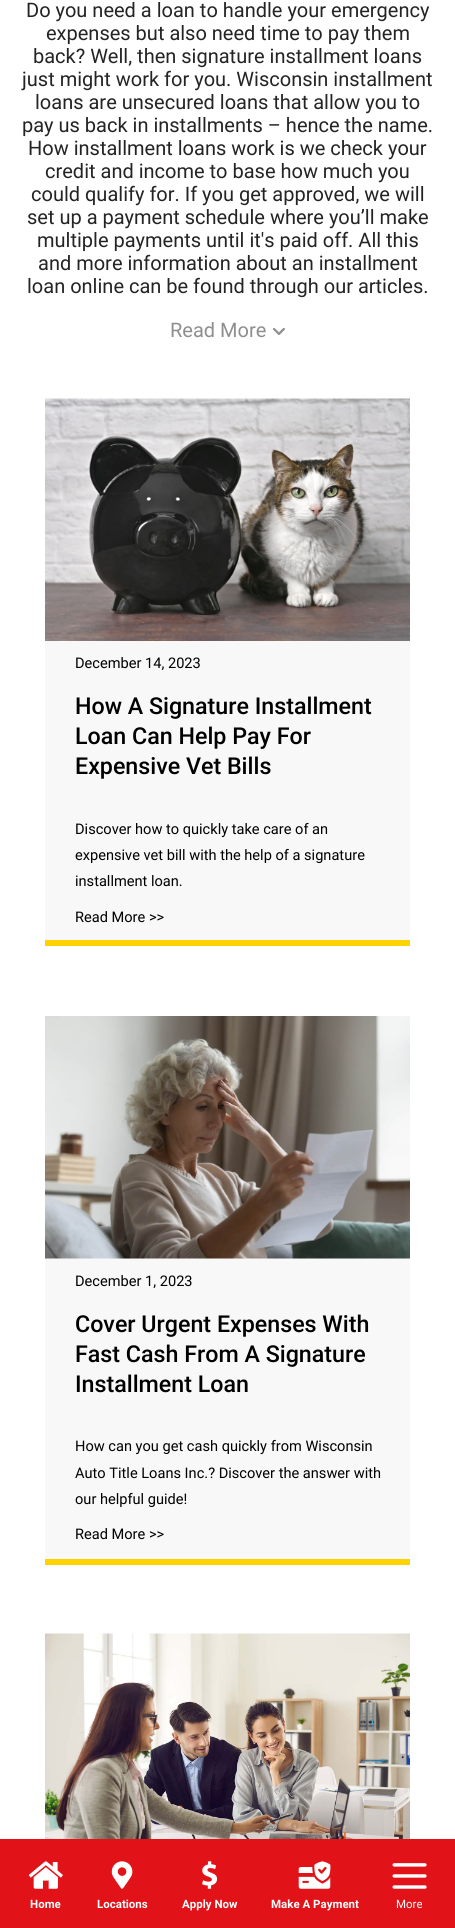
#include <cairo/cairo.h>
#include <math.h>
#include <stddef.h>


static void draw_image(cairo_t *cr, const char *path, double x, double y, double w, double h) {
  cairo_surface_t *image = cairo_image_surface_create_from_png(path);
  cairo_save(cr);
  cairo_set_source_surface(cr, image, x, y);
  cairo_rectangle(cr, x, y, w, h);
  cairo_fill(cr);
  cairo_restore(cr);
  cairo_surface_destroy(image);
}

static void draw(cairo_t *cr) {
  cairo_set_source_rgb(cr, 1, 1, 1);
  cairo_paint(cr);
  draw_image(cr, "images/1.png", 273, 328, 12, 7);
  cairo_set_source_rgb(cr, 248 / 255.0, 248 / 255.0, 248 / 255.0);
  cairo_rectangle(cr, 45, 641, 365, 299);
  cairo_fill(cr);
  cairo_set_source_rgb(cr, 1, 211 / 255.0, 0);
  cairo_rectangle(cr, 45, 940, 365, 6);
  cairo_fill(cr);
  draw_image(cr, "images/2.png", 45, 398, 365, 243);
  cairo_set_source_rgb(cr, 248 / 255.0, 248 / 255.0, 248 / 255.0);
  cairo_rectangle(cr, 45, 1258, 365, 301);
  cairo_fill(cr);
  cairo_set_source_rgb(cr, 1, 211 / 255.0, 0);
  cairo_rectangle(cr, 45, 1559, 365, 6);
  cairo_fill(cr);
  draw_image(cr, "images/3.png", 45, 1016, 365, 243);
  draw_image(cr, "images/4.png", 45, 1633, 365, 206);
  cairo_set_source_rgb(cr, 226 / 255.0, 18 / 255.0, 25 / 255.0);
  cairo_rectangle(cr, 0, 1839, 455, 89);
  cairo_fill(cr);
  draw_image(cr, "images/5.png", 28, 1861, 35, 28);
  draw_image(cr, "images/6.png", 111, 1861, 22, 28);
  draw_image(cr, "images/7.png", 202, 1861, 16, 28);
  draw_image(cr, "images/8.png", 298, 1861, 33, 28);
  draw_image(cr, "images/9.png", 392, 1863, 35, 26);
  cairo_select_font_face(cr, "Roboto", CAIRO_FONT_SLANT_NORMAL, CAIRO_FONT_WEIGHT_NORMAL);
  cairo_set_font_size(cr, 20);
  cairo_set_source_rgb(cr, 36 / 255.0, 36 / 255.0, 36 / 255.0);
  cairo_move_to(cr, 26, 17);
  cairo_show_text(cr, "Do you need a loan to handle your emergency");
  cairo_move_to(cr, 46, 40);
  cairo_show_text(cr, "expenses but also need time to pay them");
  cairo_move_to(cr, 33, 63);
  cairo_show_text(cr, "back? Well, then signature installment loans");
  cairo_move_to(cr, 22, 86);
  cairo_show_text(cr, "just might work for you. Wisconsin installment");
  cairo_move_to(cr, 35, 109);
  cairo_show_text(cr, "loans are unsecured loans that allow you to");
  cairo_move_to(cr, 22, 132);
  cairo_show_text(cr, "pay us back in installments – hence the name.");
  cairo_move_to(cr, 28, 155);
  cairo_show_text(cr, "How installment loans work is we check your");
  cairo_move_to(cr, 45, 178);
  cairo_show_text(cr, "credit and income to base how much you");
  cairo_move_to(cr, 31, 201);
  cairo_show_text(cr, "could qualify for. If you get approved, we will");
  cairo_move_to(cr, 27, 224);
  cairo_show_text(cr, "set up a payment schedule where you’ll make");
  cairo_move_to(cr, 37, 247);
  cairo_show_text(cr, "multiple payments until it's paid off. All this");
  cairo_move_to(cr, 38, 270);
  cairo_show_text(cr, "and more information about an installment");
  cairo_move_to(cr, 27, 293);
  cairo_show_text(cr, "loan online can be found through our articles.");
  cairo_set_source_rgb(cr, 142 / 255.0, 142 / 255.0, 142 / 255.0);
  cairo_move_to(cr, 170, 337);
  cairo_show_text(cr, "Read More");
  cairo_set_font_size(cr, 14.6);
  cairo_set_source_rgb(cr, 0, 0, 0);
  cairo_move_to(cr, 75, 668);
  cairo_show_text(cr, "December 14, 2023");
  cairo_select_font_face(cr, "Roboto Medium", CAIRO_FONT_SLANT_NORMAL, CAIRO_FONT_WEIGHT_NORMAL);
  cairo_set_font_size(cr, 23.25);
  cairo_move_to(cr, 75, 714);
  cairo_show_text(cr, "How A Signature Installment");
  cairo_move_to(cr, 75, 744);
  cairo_show_text(cr, "Loan Can Help Pay For");
  cairo_move_to(cr, 75, 774);
  cairo_show_text(cr, "Expensive Vet Bills");
  cairo_select_font_face(cr, "Roboto", CAIRO_FONT_SLANT_NORMAL, CAIRO_FONT_WEIGHT_NORMAL);
  cairo_set_font_size(cr, 14.6);
  cairo_move_to(cr, 75, 834);
  cairo_show_text(cr, "Discover how to quickly take care of an");
  cairo_move_to(cr, 75, 860);
  cairo_show_text(cr, "expensive vet bill with the help of a signature");
  cairo_move_to(cr, 75, 886);
  cairo_show_text(cr, "installment loan.");
  cairo_move_to(cr, 75, 922);
  cairo_show_text(cr, "Read More >>");
  cairo_move_to(cr, 75, 1286);
  cairo_show_text(cr, "December 1, 2023");
  cairo_select_font_face(cr, "Roboto Medium", CAIRO_FONT_SLANT_NORMAL, CAIRO_FONT_WEIGHT_NORMAL);
  cairo_set_font_size(cr, 23.25);
  cairo_move_to(cr, 75, 1332);
  cairo_show_text(cr, "Cover Urgent Expenses With");
  cairo_move_to(cr, 75, 1362);
  cairo_show_text(cr, "Fast Cash From A Signature");
  cairo_move_to(cr, 75, 1392);
  cairo_show_text(cr, "Installment Loan");
  cairo_select_font_face(cr, "Roboto", CAIRO_FONT_SLANT_NORMAL, CAIRO_FONT_WEIGHT_NORMAL);
  cairo_set_font_size(cr, 14.6);
  cairo_move_to(cr, 75, 1451);
  cairo_show_text(cr, "How can you get cash quickly from Wisconsin");
  cairo_move_to(cr, 75, 1478);
  cairo_show_text(cr, "Auto Title Loans Inc.? Discover the answer with");
  cairo_move_to(cr, 75, 1504);
  cairo_show_text(cr, "our helpful guide!");
  cairo_move_to(cr, 75, 1539);
  cairo_show_text(cr, "Read More >>");
  cairo_select_font_face(cr, "Roboto", CAIRO_FONT_SLANT_NORMAL, CAIRO_FONT_WEIGHT_BOLD);
  cairo_set_font_size(cr, 11.5);
  cairo_set_source_rgb(cr, 1, 1, 1);
  cairo_move_to(cr, 30, 1908);
  cairo_show_text(cr, "Home");
  cairo_move_to(cr, 97, 1908);
  cairo_show_text(cr, "Locations");
  cairo_move_to(cr, 182, 1908);
  cairo_show_text(cr, "Apply Now");
  cairo_move_to(cr, 271, 1908);
  cairo_show_text(cr, "Make A Payment");
  cairo_select_font_face(cr, "Roboto", CAIRO_FONT_SLANT_NORMAL, CAIRO_FONT_WEIGHT_NORMAL);
  cairo_move_to(cr, 396, 1908);
  cairo_show_text(cr, "More");
}

int main(void) {
  cairo_surface_t *surface = cairo_image_surface_create(CAIRO_FORMAT_RGB24, 455, 1928);
  cairo_t *cr = cairo_create(surface);
  cairo_font_options_t *options = cairo_font_options_create();
  cairo_font_options_set_hint_metrics(options, CAIRO_HINT_METRICS_OFF);
  cairo_font_options_set_hint_style(options, CAIRO_HINT_STYLE_NONE);
  cairo_set_font_options(cr, options);
  cairo_set_miter_limit(cr, 4);
  draw(cr);
  cairo_surface_write_to_png(surface, "out.png");
  cairo_font_options_destroy(options);
  cairo_destroy(cr);
  cairo_surface_destroy(surface);
  return 0;
}
